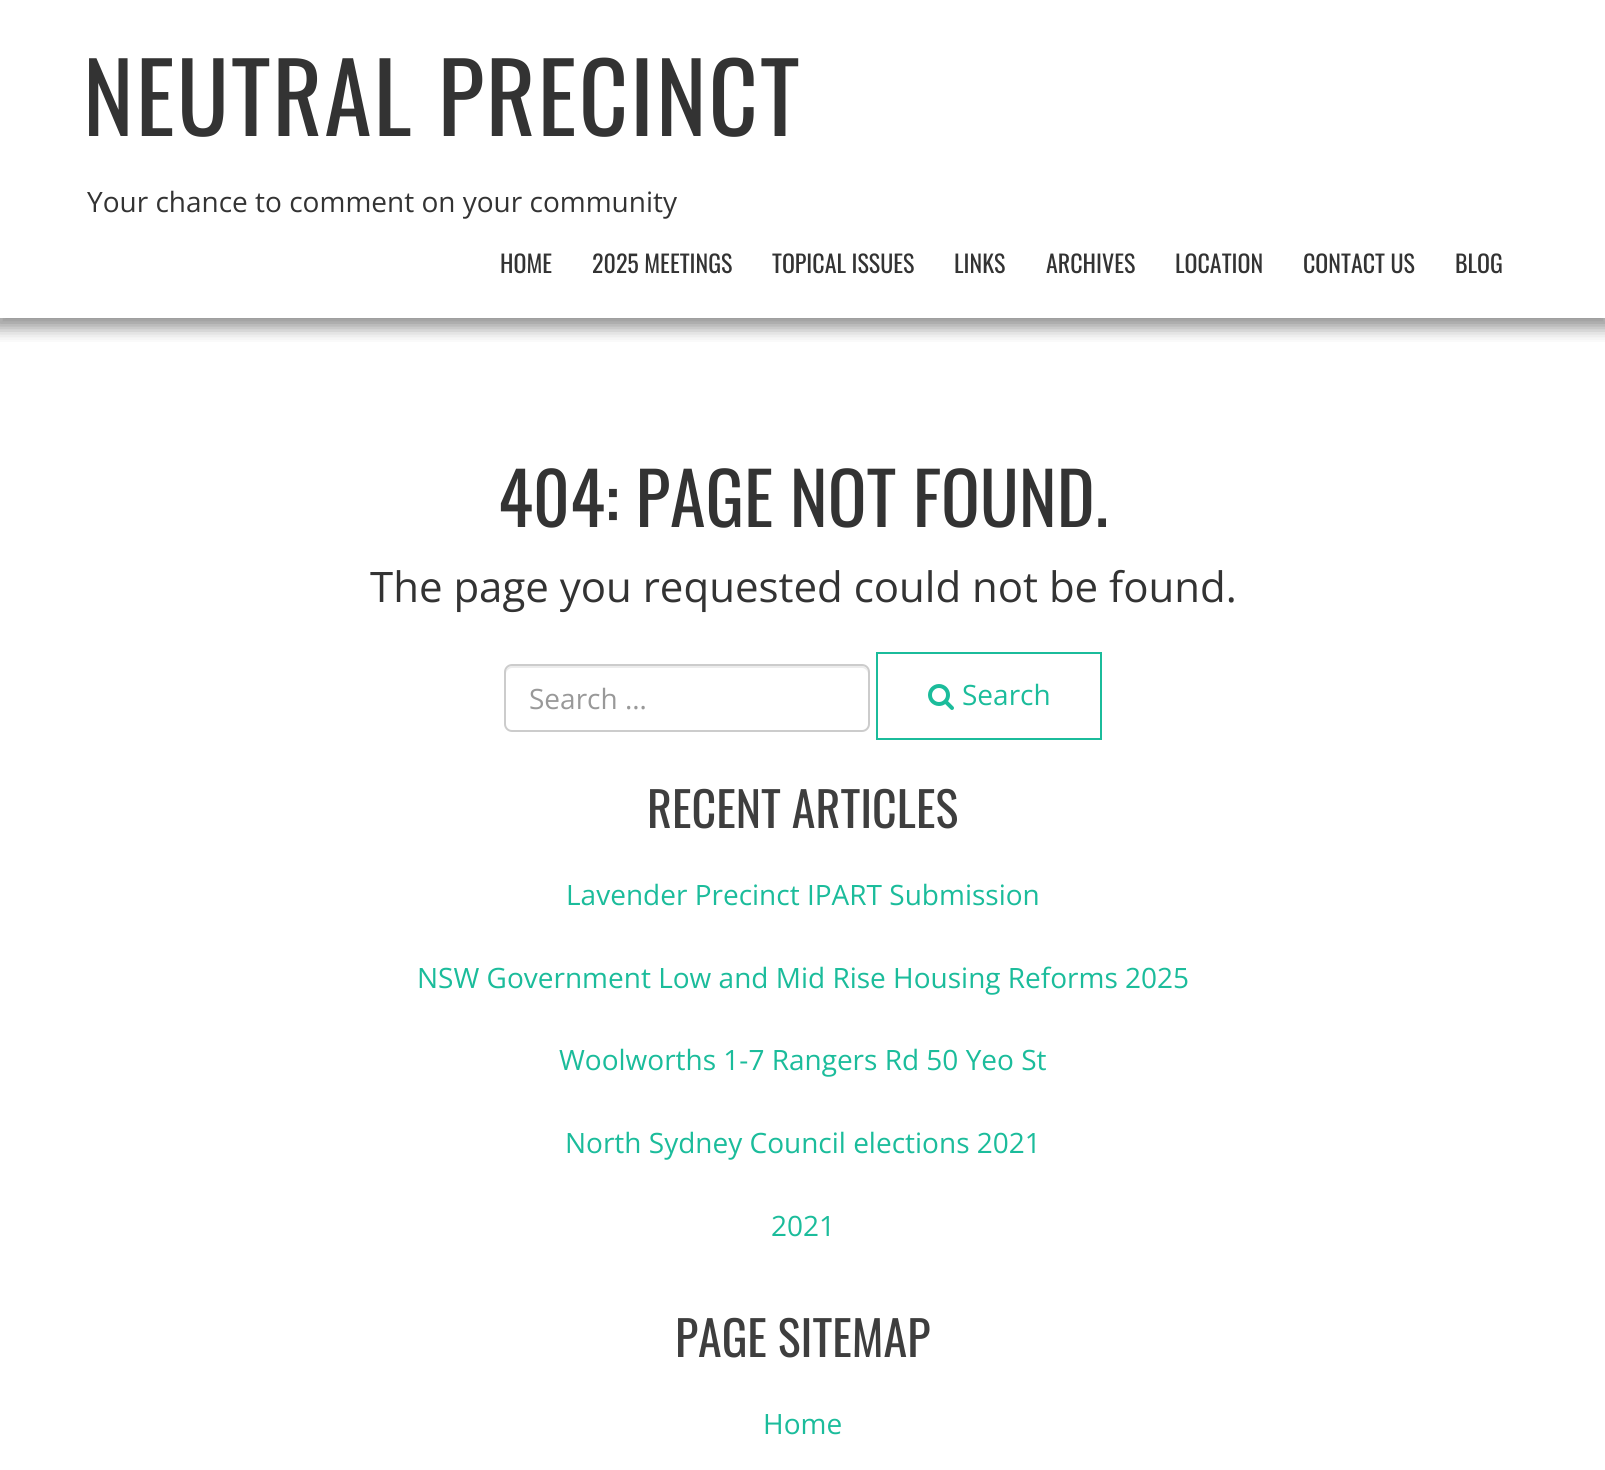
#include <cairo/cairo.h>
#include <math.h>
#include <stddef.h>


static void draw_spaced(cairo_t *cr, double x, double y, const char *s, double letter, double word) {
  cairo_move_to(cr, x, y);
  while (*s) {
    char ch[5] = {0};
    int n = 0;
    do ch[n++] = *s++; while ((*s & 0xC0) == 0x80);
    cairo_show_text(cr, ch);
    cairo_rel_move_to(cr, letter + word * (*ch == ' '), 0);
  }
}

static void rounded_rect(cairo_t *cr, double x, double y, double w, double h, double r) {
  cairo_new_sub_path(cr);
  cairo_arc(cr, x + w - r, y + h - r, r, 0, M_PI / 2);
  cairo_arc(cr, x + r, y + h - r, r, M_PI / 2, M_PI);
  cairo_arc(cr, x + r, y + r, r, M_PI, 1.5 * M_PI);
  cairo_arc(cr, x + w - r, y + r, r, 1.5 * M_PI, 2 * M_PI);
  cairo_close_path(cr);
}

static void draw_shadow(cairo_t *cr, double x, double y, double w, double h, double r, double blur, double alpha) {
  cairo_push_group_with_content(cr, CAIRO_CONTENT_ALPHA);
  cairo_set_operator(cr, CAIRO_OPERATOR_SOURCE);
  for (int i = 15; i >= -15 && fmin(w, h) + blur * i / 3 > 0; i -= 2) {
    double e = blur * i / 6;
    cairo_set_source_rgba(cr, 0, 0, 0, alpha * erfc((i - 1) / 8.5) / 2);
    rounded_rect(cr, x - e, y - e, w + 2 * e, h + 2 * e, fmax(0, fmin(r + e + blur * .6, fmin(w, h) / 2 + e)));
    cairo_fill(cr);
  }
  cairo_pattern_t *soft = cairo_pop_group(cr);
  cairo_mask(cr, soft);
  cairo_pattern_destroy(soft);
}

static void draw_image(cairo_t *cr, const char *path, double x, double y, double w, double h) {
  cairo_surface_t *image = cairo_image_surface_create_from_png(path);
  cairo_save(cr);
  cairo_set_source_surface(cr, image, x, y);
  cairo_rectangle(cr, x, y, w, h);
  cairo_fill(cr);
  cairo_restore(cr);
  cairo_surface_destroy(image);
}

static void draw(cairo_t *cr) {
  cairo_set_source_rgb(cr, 1, 1, 1);
  cairo_paint(cr);
  cairo_save(cr);
  cairo_rectangle(cr, 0, 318, 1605, 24);
  cairo_clip(cr);
  cairo_set_source_rgb(cr, 38 / 255.0, 38 / 255.0, 38 / 255.0);
  draw_shadow(cr, -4, 2, 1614, 326, 0, 8, 0.5);
  cairo_restore(cr);
  cairo_set_source_rgb(cr, 236 / 255.0, 236 / 255.0, 236 / 255.0);
  cairo_new_path(cr);
  cairo_move_to(cr, 512, 668);
  cairo_line_to(cr, 862, 668);
  cairo_curve_to(cr, 865, 668, 868, 671, 868, 674);
  cairo_line_to(cr, 868, 672);
  cairo_curve_to(cr, 868, 669, 865, 666, 862, 666);
  cairo_line_to(cr, 512, 666);
  cairo_curve_to(cr, 509, 666, 506, 669, 506, 672);
  cairo_line_to(cr, 506, 674);
  cairo_curve_to(cr, 506, 671, 509, 668, 512, 668);
  cairo_close_path(cr);
  cairo_fill(cr);
  rounded_rect(cr, 505, 665, 364, 66, 7);
  cairo_set_source_rgb(cr, 204 / 255.0, 204 / 255.0, 204 / 255.0);
  cairo_stroke(cr);
  cairo_rectangle(cr, 877, 653, 224, 86);
  cairo_set_source_rgb(cr, 27 / 255.0, 188 / 255.0, 155 / 255.0);
  cairo_stroke(cr);
  draw_image(cr, "images/1.png", 928, 684, 26, 26);
  cairo_select_font_face(cr, "Oswald", CAIRO_FONT_SLANT_NORMAL, CAIRO_FONT_WEIGHT_NORMAL);
  cairo_set_font_size(cr, 96);
  cairo_set_source_rgb(cr, 51 / 255.0, 51 / 255.0, 51 / 255.0);
  draw_spaced(cr, 83, 136, "NEUTRAL PRECINCT", 2, 0);
  cairo_select_font_face(cr, "Open Sans", CAIRO_FONT_SLANT_NORMAL, CAIRO_FONT_WEIGHT_NORMAL);
  cairo_set_font_size(cr, 28);
  cairo_move_to(cr, 87, 212);
  cairo_show_text(cr, "Your chance to comment on your community");
  cairo_select_font_face(cr, "Oswald", CAIRO_FONT_SLANT_NORMAL, CAIRO_FONT_WEIGHT_NORMAL);
  cairo_set_font_size(cr, 24);
  cairo_move_to(cr, 500, 273);
  cairo_show_text(cr, "HOME");
  cairo_move_to(cr, 592, 273);
  cairo_show_text(cr, "2025 MEETINGS");
  cairo_move_to(cr, 772, 273);
  cairo_show_text(cr, "TOPICAL ISSUES");
  cairo_move_to(cr, 954, 273);
  cairo_show_text(cr, "LINKS");
  cairo_move_to(cr, 1046, 273);
  cairo_show_text(cr, "ARCHIVES");
  cairo_move_to(cr, 1175, 273);
  cairo_show_text(cr, "LOCATION");
  cairo_move_to(cr, 1303, 273);
  cairo_show_text(cr, "CONTACT US");
  cairo_move_to(cr, 1455, 273);
  cairo_show_text(cr, "BLOG");
  cairo_set_font_size(cr, 72);
  cairo_move_to(cr, 498, 527);
  cairo_show_text(cr, "404: PAGE NOT FOUND.");
  cairo_select_font_face(cr, "Open Sans", CAIRO_FONT_SLANT_NORMAL, CAIRO_FONT_WEIGHT_NORMAL);
  cairo_set_font_size(cr, 42);
  cairo_move_to(cr, 370, 602);
  cairo_show_text(cr, "The page you requested could not be found.");
  cairo_set_font_size(cr, 28);
  cairo_set_source_rgb(cr, 153 / 255.0, 153 / 255.0, 153 / 255.0);
  cairo_move_to(cr, 529, 709);
  cairo_show_text(cr, "Search …");
  cairo_set_source_rgb(cr, 27 / 255.0, 188 / 255.0, 155 / 255.0);
  cairo_move_to(cr, 962, 705);
  cairo_show_text(cr, "Search");
  cairo_select_font_face(cr, "Oswald", CAIRO_FONT_SLANT_NORMAL, CAIRO_FONT_WEIGHT_NORMAL);
  cairo_set_font_size(cr, 48);
  cairo_set_source_rgb(cr, 62 / 255.0, 62 / 255.0, 62 / 255.0);
  cairo_move_to(cr, 647, 828);
  cairo_show_text(cr, "RECENT ARTICLES");
  cairo_select_font_face(cr, "Open Sans", CAIRO_FONT_SLANT_NORMAL, CAIRO_FONT_WEIGHT_NORMAL);
  cairo_set_font_size(cr, 28);
  cairo_set_source_rgb(cr, 27 / 255.0, 188 / 255.0, 155 / 255.0);
  cairo_move_to(cr, 566, 905);
  cairo_show_text(cr, "Lavender Precinct IPART Submission");
  cairo_move_to(cr, 417, 988);
  cairo_show_text(cr, "NSW Government Low and Mid Rise Housing Reforms 2025");
  cairo_move_to(cr, 559, 1070);
  cairo_show_text(cr, "Woolworths 1-7 Rangers Rd 50 Yeo St");
  cairo_move_to(cr, 565, 1153);
  cairo_show_text(cr, "North Sydney Council elections 2021");
  cairo_move_to(cr, 771, 1236);
  cairo_show_text(cr, "2021");
  cairo_select_font_face(cr, "Oswald", CAIRO_FONT_SLANT_NORMAL, CAIRO_FONT_WEIGHT_NORMAL);
  cairo_set_font_size(cr, 48);
  cairo_set_source_rgb(cr, 62 / 255.0, 62 / 255.0, 62 / 255.0);
  cairo_move_to(cr, 675, 1357);
  cairo_show_text(cr, "PAGE SITEMAP");
  cairo_select_font_face(cr, "Open Sans", CAIRO_FONT_SLANT_NORMAL, CAIRO_FONT_WEIGHT_NORMAL);
  cairo_set_font_size(cr, 28);
  cairo_set_source_rgb(cr, 27 / 255.0, 188 / 255.0, 155 / 255.0);
  cairo_move_to(cr, 763, 1434);
  cairo_show_text(cr, "Home");
}

int main(void) {
  cairo_surface_t *surface = cairo_image_surface_create(CAIRO_FORMAT_RGB24, 1605, 1470);
  cairo_t *cr = cairo_create(surface);
  cairo_font_options_t *options = cairo_font_options_create();
  cairo_font_options_set_hint_metrics(options, CAIRO_HINT_METRICS_OFF);
  cairo_font_options_set_hint_style(options, CAIRO_HINT_STYLE_NONE);
  cairo_set_font_options(cr, options);
  cairo_set_miter_limit(cr, 4);
  draw(cr);
  cairo_surface_write_to_png(surface, "out.png");
  cairo_font_options_destroy(options);
  cairo_destroy(cr);
  cairo_surface_destroy(surface);
  return 0;
}
